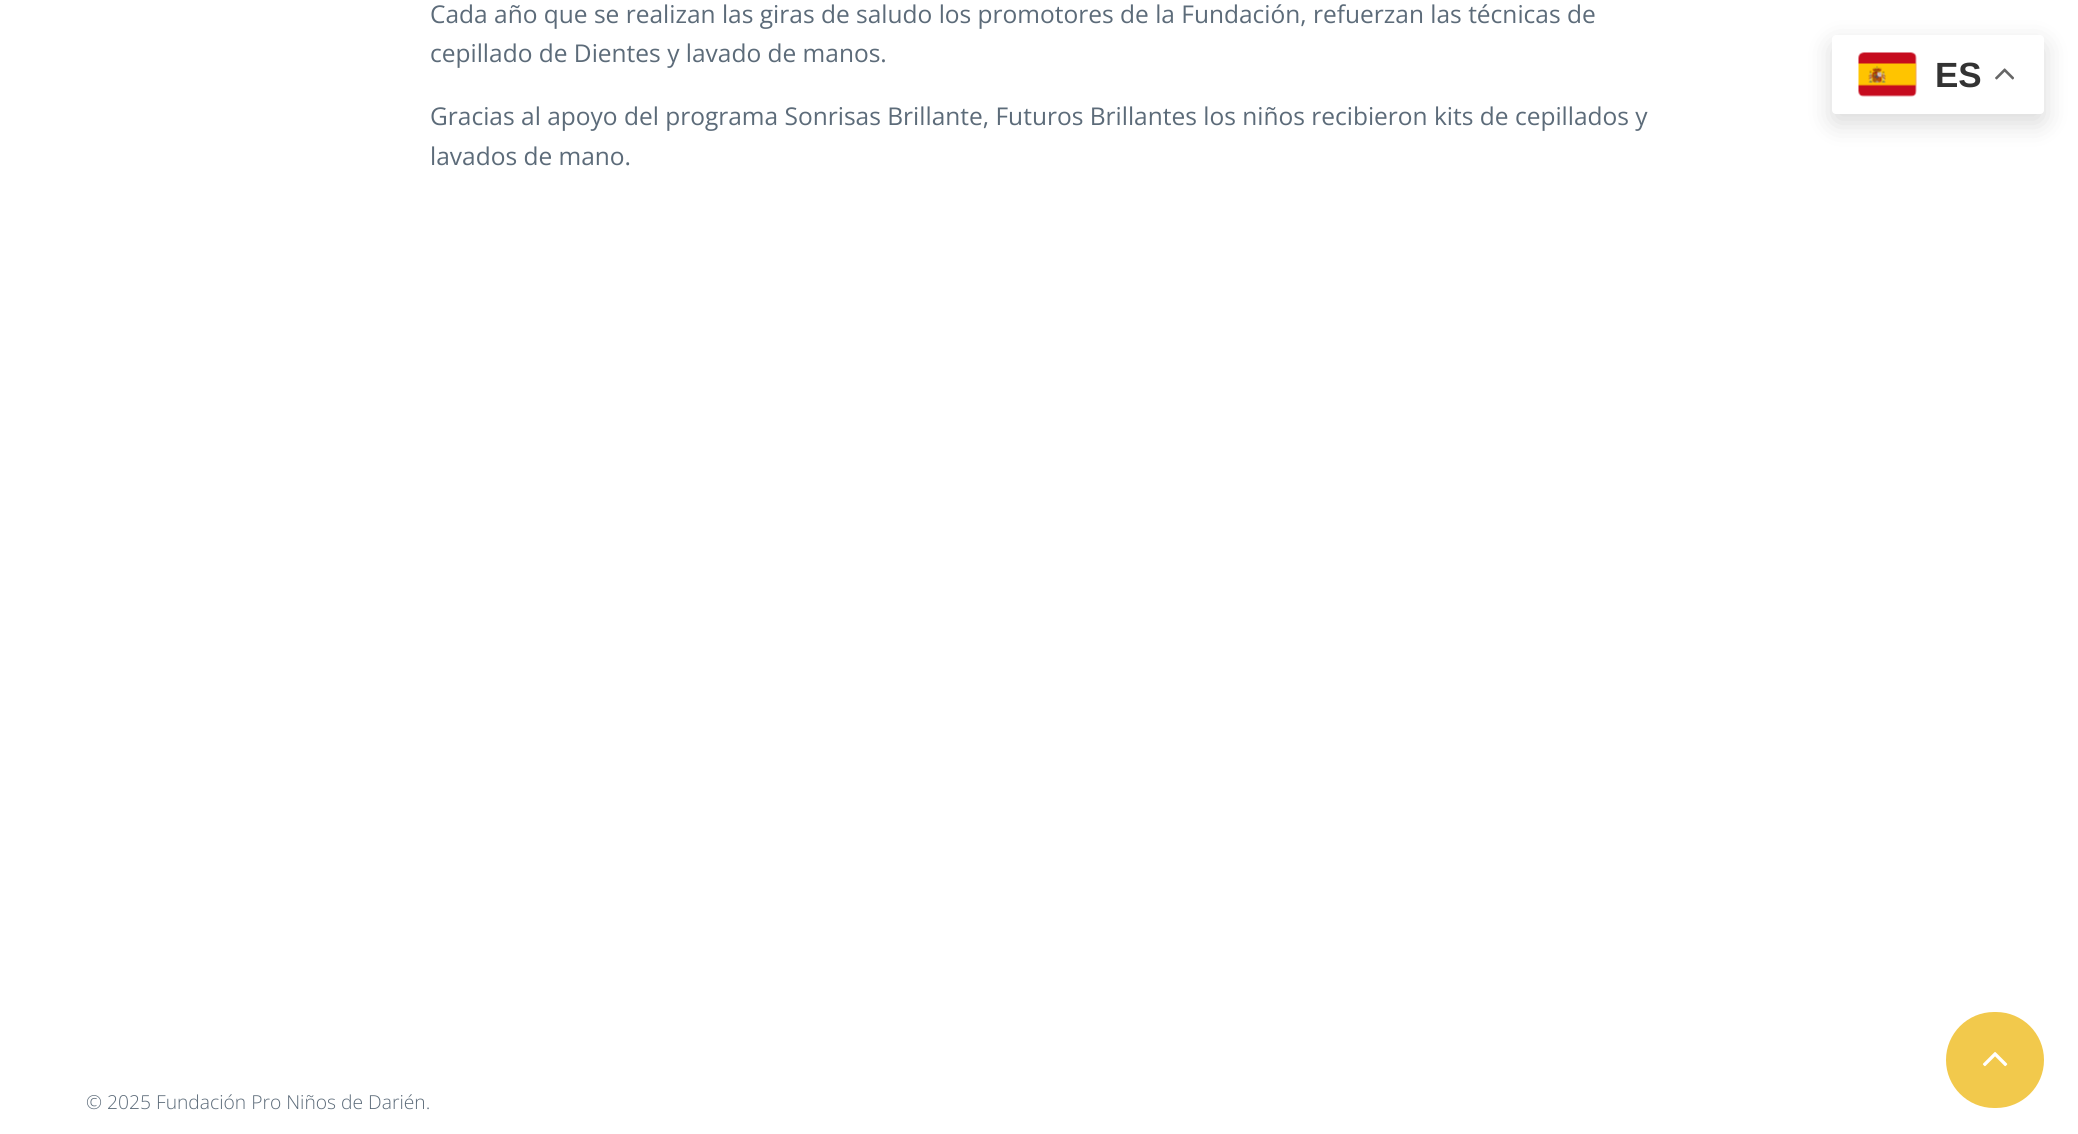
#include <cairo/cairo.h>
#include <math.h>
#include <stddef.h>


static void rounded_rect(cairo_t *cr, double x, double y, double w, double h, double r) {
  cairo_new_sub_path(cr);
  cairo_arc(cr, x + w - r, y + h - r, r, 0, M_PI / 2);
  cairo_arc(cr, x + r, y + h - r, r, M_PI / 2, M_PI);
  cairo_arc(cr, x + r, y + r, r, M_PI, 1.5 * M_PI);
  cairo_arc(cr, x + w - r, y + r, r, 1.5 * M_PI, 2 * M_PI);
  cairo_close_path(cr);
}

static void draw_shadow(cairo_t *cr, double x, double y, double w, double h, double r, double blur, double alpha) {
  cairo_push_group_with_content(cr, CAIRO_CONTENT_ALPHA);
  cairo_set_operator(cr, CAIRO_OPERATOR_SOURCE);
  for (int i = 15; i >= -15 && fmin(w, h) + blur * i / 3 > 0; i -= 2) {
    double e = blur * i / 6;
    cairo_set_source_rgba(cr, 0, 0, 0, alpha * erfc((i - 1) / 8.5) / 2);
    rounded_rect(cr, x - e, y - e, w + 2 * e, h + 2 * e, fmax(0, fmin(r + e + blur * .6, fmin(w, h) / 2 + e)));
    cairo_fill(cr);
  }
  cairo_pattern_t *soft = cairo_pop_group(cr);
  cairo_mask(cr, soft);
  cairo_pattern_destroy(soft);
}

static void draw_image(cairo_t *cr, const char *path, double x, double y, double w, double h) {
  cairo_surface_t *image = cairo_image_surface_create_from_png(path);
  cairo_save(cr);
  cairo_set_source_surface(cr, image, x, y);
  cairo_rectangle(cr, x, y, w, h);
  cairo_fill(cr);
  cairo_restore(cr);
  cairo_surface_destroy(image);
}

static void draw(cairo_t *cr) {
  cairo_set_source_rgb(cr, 1, 1, 1);
  cairo_paint(cr);
  cairo_set_source_rgb(cr, 0, 0, 0);
  draw_shadow(cr, 1832, 44, 212, 79, 4, 13, 0.15);
  cairo_set_source_rgb(cr, 1, 1, 1);
  rounded_rect(cr, 1832, 35, 212, 79, 4);
  cairo_fill(cr);
  draw_image(cr, "images/1.png", 1858, 52, 59, 45);
  draw_image(cr, "images/2.png", 1995, 68, 19, 12);
  cairo_set_source_rgb(cr, 242 / 255.0, 201 / 255.0, 76 / 255.0);
  rounded_rect(cr, 1946, 1012, 98, 96, 48);
  cairo_fill(cr);
  draw_image(cr, "images/3.png", 1982, 1052, 26, 15);
  cairo_select_font_face(cr, "Open Sans", CAIRO_FONT_SLANT_NORMAL, CAIRO_FONT_WEIGHT_NORMAL);
  cairo_set_font_size(cr, 24.5);
  cairo_set_source_rgb(cr, 92 / 255.0, 107 / 255.0, 121 / 255.0);
  cairo_move_to(cr, 430, 23);
  cairo_show_text(cr, "Cada año que se realizan las giras de saludo los promotores de la Fundación, refuerzan las técnicas de");
  cairo_move_to(cr, 430, 62);
  cairo_show_text(cr, "cepillado de Dientes y lavado de manos.");
  cairo_move_to(cr, 430, 125);
  cairo_show_text(cr, "Gracias al apoyo del programa Sonrisas Brillante, Futuros Brillantes los niños recibieron kits de cepillados y");
  cairo_move_to(cr, 430, 165);
  cairo_show_text(cr, "lavados de mano.");
  cairo_select_font_face(cr, "Open Sans Light", CAIRO_FONT_SLANT_NORMAL, CAIRO_FONT_WEIGHT_NORMAL);
  cairo_set_font_size(cr, 19.25);
  cairo_move_to(cr, 86, 1109);
  cairo_show_text(cr, "© 2025 Fundación Pro Niños de Darién.");
  cairo_select_font_face(cr, "Liberation Sans", CAIRO_FONT_SLANT_NORMAL, CAIRO_FONT_WEIGHT_BOLD);
  cairo_set_font_size(cr, 35);
  cairo_set_source_rgb(cr, 51 / 255.0, 51 / 255.0, 51 / 255.0);
  cairo_move_to(cr, 1935, 87);
  cairo_show_text(cr, "ES");
}

int main(void) {
  cairo_surface_t *surface = cairo_image_surface_create(CAIRO_FORMAT_RGB24, 2078, 1134);
  cairo_t *cr = cairo_create(surface);
  cairo_font_options_t *options = cairo_font_options_create();
  cairo_font_options_set_hint_metrics(options, CAIRO_HINT_METRICS_OFF);
  cairo_font_options_set_hint_style(options, CAIRO_HINT_STYLE_NONE);
  cairo_set_font_options(cr, options);
  cairo_set_miter_limit(cr, 4);
  draw(cr);
  cairo_surface_write_to_png(surface, "out.png");
  cairo_font_options_destroy(options);
  cairo_destroy(cr);
  cairo_surface_destroy(surface);
  return 0;
}
